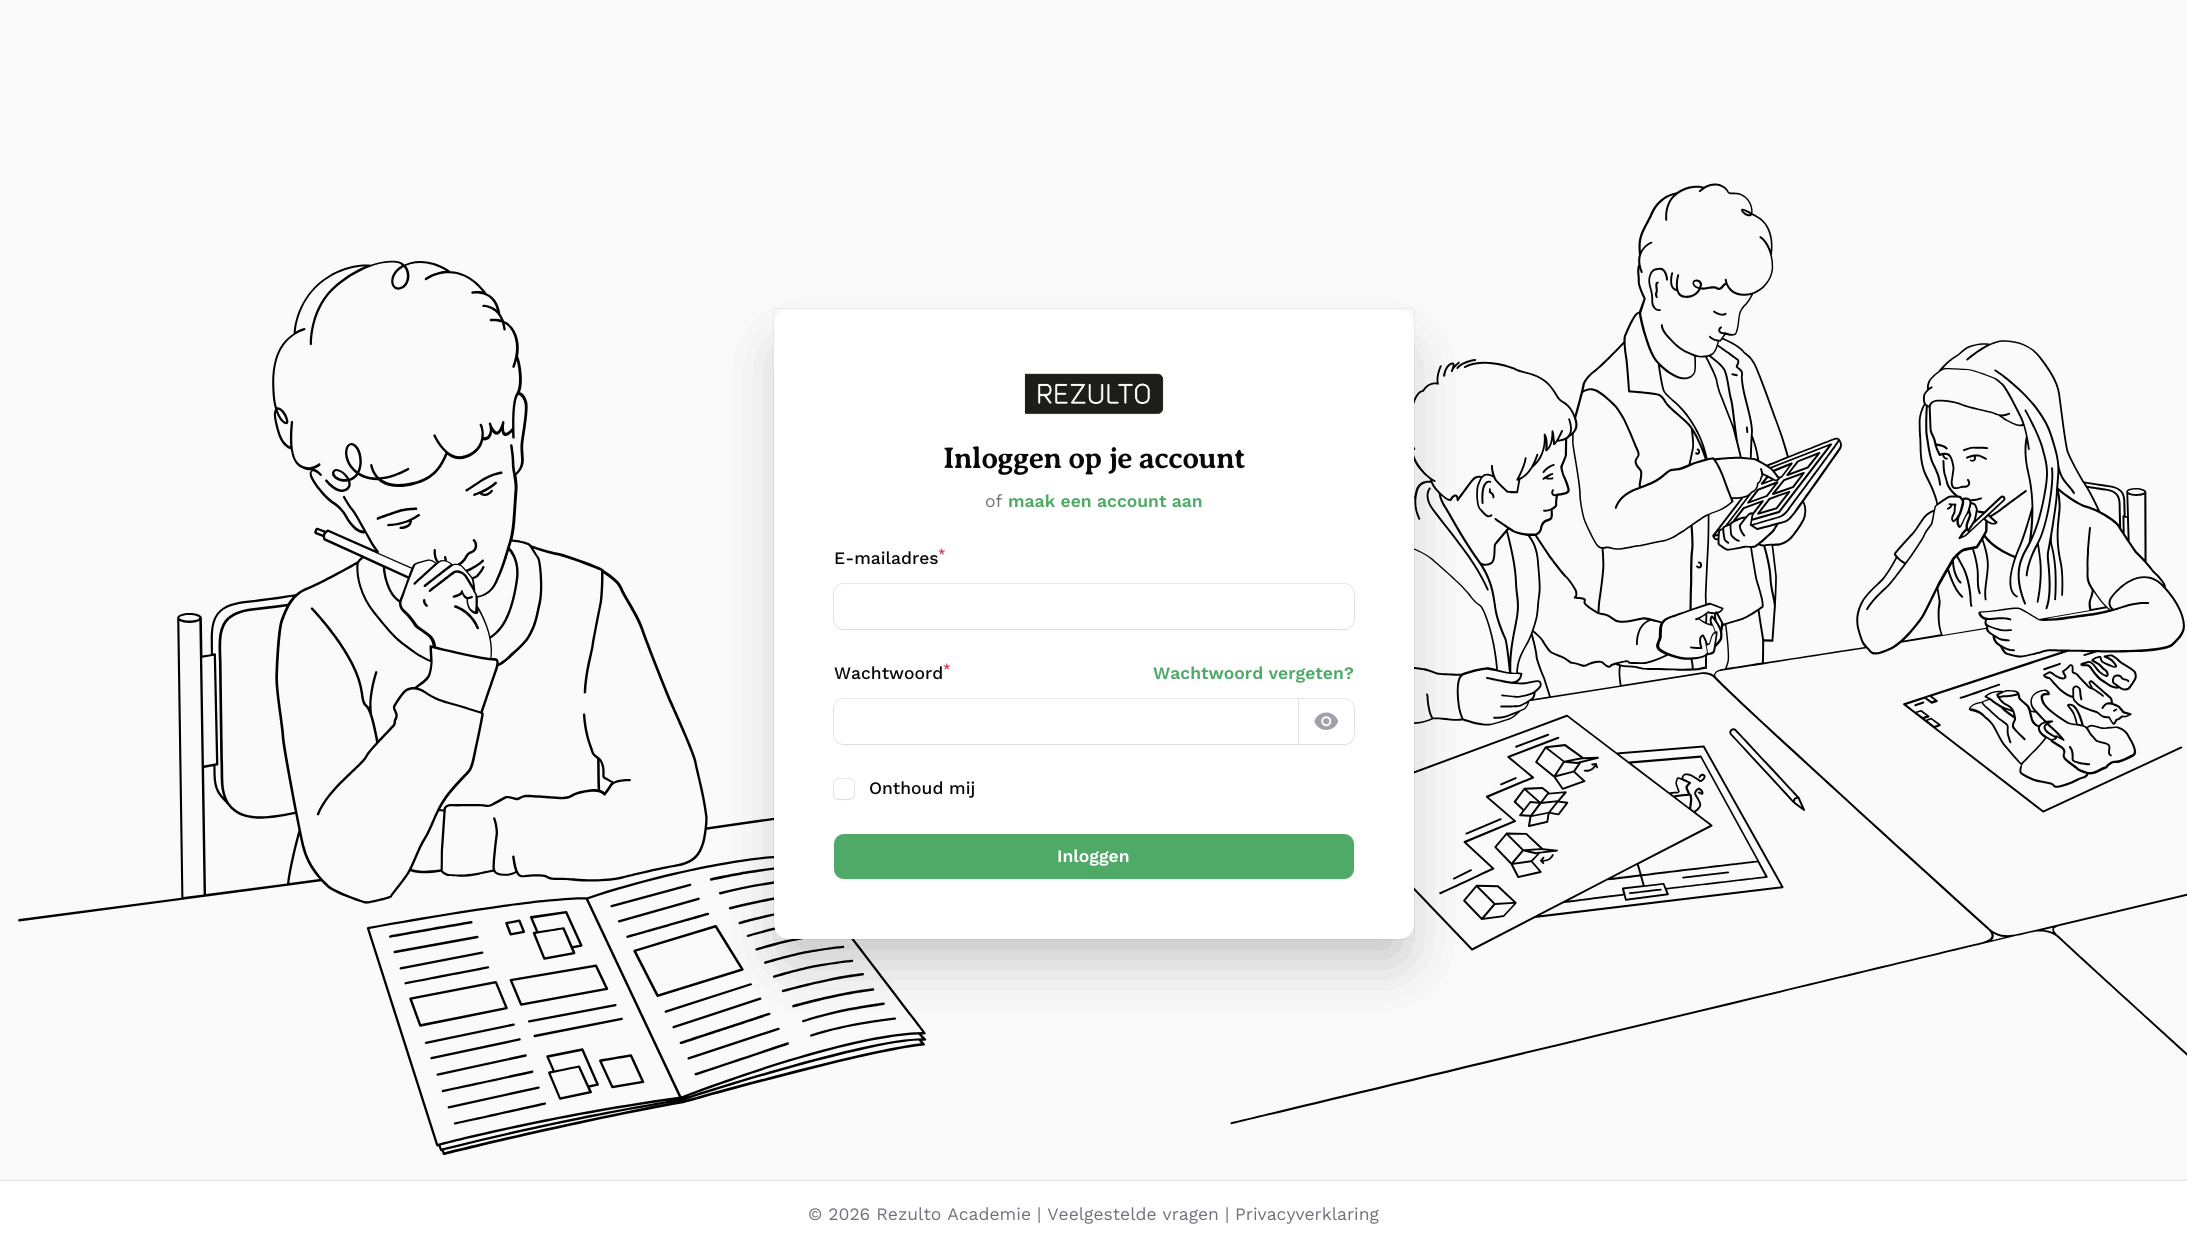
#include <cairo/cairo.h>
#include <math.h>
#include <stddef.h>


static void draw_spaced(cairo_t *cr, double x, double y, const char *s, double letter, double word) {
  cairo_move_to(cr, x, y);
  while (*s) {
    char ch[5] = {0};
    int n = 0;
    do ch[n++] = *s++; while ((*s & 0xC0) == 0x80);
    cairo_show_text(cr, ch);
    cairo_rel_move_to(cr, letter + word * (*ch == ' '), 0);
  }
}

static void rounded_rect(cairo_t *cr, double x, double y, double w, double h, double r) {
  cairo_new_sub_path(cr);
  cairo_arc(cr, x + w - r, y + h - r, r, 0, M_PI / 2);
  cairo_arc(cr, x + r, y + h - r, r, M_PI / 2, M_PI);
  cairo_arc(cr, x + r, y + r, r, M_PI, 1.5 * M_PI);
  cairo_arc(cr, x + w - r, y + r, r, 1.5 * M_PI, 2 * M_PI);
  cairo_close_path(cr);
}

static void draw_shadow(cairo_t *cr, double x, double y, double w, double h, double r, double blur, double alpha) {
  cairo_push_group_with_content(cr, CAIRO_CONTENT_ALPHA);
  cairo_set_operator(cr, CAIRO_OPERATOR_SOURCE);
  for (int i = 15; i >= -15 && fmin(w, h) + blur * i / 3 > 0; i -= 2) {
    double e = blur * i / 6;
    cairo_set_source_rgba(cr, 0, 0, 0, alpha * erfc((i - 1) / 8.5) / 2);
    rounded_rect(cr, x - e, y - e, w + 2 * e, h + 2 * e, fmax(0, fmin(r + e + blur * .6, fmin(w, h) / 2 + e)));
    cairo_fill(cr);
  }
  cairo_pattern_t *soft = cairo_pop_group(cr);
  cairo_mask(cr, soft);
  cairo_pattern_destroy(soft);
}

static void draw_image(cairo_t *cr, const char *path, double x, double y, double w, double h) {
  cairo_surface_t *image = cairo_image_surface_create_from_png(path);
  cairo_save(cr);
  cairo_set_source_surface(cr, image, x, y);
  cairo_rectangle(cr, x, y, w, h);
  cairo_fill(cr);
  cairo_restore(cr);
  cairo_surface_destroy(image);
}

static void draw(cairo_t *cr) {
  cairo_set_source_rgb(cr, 250 / 255.0, 250 / 255.0, 250 / 255.0);
  cairo_paint(cr);
  draw_image(cr, "images/1.png", 18, 183, 2169, 972);
  cairo_set_source_rgb(cr, 0, 0, 0);
  draw_shadow(cr, 789, 355, 610, 600, 0, 31, 0.25);
  cairo_rectangle(cr, 773.5, 308.5, 641, 631);
  cairo_set_source_rgba(cr, 9 / 255.0, 9 / 255.0, 11 / 255.0, 0.05);
  cairo_set_line_width(cr, 1);
  cairo_stroke(cr);
  cairo_set_source_rgb(cr, 1, 1, 1);
  rounded_rect(cr, 774, 309, 640, 630, 15);
  cairo_fill(cr);
  draw_image(cr, "images/2.png", 1024, 373, 140, 42);
  cairo_set_source_rgb(cr, 0, 0, 0);
  draw_shadow(cr, 834, 585, 520, 45, 10, 1, 0.05);
  rounded_rect(cr, 833.5, 583.5, 521, 46, 10.5);
  cairo_set_source_rgba(cr, 9 / 255.0, 9 / 255.0, 11 / 255.0, 0.1);
  cairo_stroke(cr);
  cairo_set_source_rgb(cr, 1, 1, 1);
  rounded_rect(cr, 834, 584, 520, 45, 10);
  cairo_fill(cr);
  cairo_set_source_rgb(cr, 0, 0, 0);
  draw_shadow(cr, 834, 700, 520, 45, 10, 1, 0.05);
  rounded_rect(cr, 833.5, 698.5, 521, 46, 10.5);
  cairo_set_source_rgba(cr, 9 / 255.0, 9 / 255.0, 11 / 255.0, 0.1);
  cairo_stroke(cr);
  cairo_set_source_rgb(cr, 1, 1, 1);
  rounded_rect(cr, 834, 699, 520, 45, 10);
  cairo_fill(cr);
  cairo_set_source_rgb(cr, 228 / 255.0, 228 / 255.0, 231 / 255.0);
  cairo_rectangle(cr, 1298, 699, 1, 45);
  cairo_fill(cr);
  draw_image(cr, "images/3.png", 1314, 712, 24, 18);
  cairo_set_source_rgb(cr, 0, 0, 0);
  draw_shadow(cr, 834, 780, 20, 20, 5, 1, 0.05);
  rounded_rect(cr, 833.5, 778.5, 21, 21, 5.5);
  cairo_set_source_rgba(cr, 9 / 255.0, 9 / 255.0, 11 / 255.0, 0.1);
  cairo_stroke(cr);
  cairo_set_source_rgb(cr, 1, 1, 1);
  rounded_rect(cr, 834, 779, 20, 20, 5);
  cairo_fill(cr);
  cairo_set_source_rgb(cr, 0, 0, 0);
  draw_shadow(cr, 834, 835, 520, 45, 10, 1, 0.05);
  cairo_set_source_rgb(cr, 79 / 255.0, 170 / 255.0, 103 / 255.0);
  rounded_rect(cr, 834, 834, 520, 45, 10);
  cairo_fill(cr);
  cairo_set_source_rgb(cr, 0, 0, 0);
  draw_shadow(cr, 0, 1181, 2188, 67, 0, 2, 0.1);
  cairo_set_source_rgb(cr, 1, 1, 1);
  cairo_rectangle(cr, 0, 1181, 2187, 65);
  cairo_fill(cr);
  cairo_set_source_rgb(cr, 228 / 255.0, 228 / 255.0, 231 / 255.0);
  cairo_rectangle(cr, 0, 1180, 2187, 1);
  cairo_fill(cr);
  cairo_select_font_face(cr, "Averia Serif Libre", CAIRO_FONT_SLANT_NORMAL, CAIRO_FONT_WEIGHT_BOLD);
  cairo_set_font_size(cr, 30);
  cairo_set_source_rgb(cr, 9 / 255.0, 9 / 255.0, 11 / 255.0);
  draw_spaced(cr, 943, 468, "Inloggen op je account", -0.75, 0);
  cairo_select_font_face(cr, "Work Sans", CAIRO_FONT_SLANT_NORMAL, CAIRO_FONT_WEIGHT_NORMAL);
  cairo_set_font_size(cr, 17.5);
  cairo_set_source_rgb(cr, 113 / 255.0, 113 / 255.0, 122 / 255.0);
  cairo_move_to(cr, 985, 507);
  cairo_show_text(cr, "of");
  cairo_select_font_face(cr, "Work Sans SemiBold", CAIRO_FONT_SLANT_NORMAL, CAIRO_FONT_WEIGHT_NORMAL);
  cairo_set_source_rgb(cr, 79 / 255.0, 170 / 255.0, 103 / 255.0);
  cairo_move_to(cr, 1008, 507);
  cairo_show_text(cr, "maak een account aan");
  cairo_select_font_face(cr, "Work Sans Medium", CAIRO_FONT_SLANT_NORMAL, CAIRO_FONT_WEIGHT_NORMAL);
  cairo_set_source_rgb(cr, 9 / 255.0, 9 / 255.0, 11 / 255.0);
  cairo_move_to(cr, 834, 564);
  cairo_show_text(cr, "E-mailadres");
  cairo_set_font_size(cr, 13);
  cairo_set_source_rgb(cr, 225 / 255.0, 29 / 255.0, 72 / 255.0);
  cairo_move_to(cr, 938, 558);
  cairo_show_text(cr, "*");
  cairo_set_font_size(cr, 17.5);
  cairo_set_source_rgb(cr, 9 / 255.0, 9 / 255.0, 11 / 255.0);
  cairo_move_to(cr, 834, 679);
  cairo_show_text(cr, "Wachtwoord");
  cairo_set_font_size(cr, 13);
  cairo_set_source_rgb(cr, 225 / 255.0, 29 / 255.0, 72 / 255.0);
  cairo_move_to(cr, 943, 673);
  cairo_show_text(cr, "*");
  cairo_select_font_face(cr, "Work Sans SemiBold", CAIRO_FONT_SLANT_NORMAL, CAIRO_FONT_WEIGHT_NORMAL);
  cairo_set_font_size(cr, 17.5);
  cairo_set_source_rgb(cr, 79 / 255.0, 170 / 255.0, 103 / 255.0);
  cairo_move_to(cr, 1153, 679);
  cairo_show_text(cr, "Wachtwoord vergeten?");
  cairo_select_font_face(cr, "Work Sans Medium", CAIRO_FONT_SLANT_NORMAL, CAIRO_FONT_WEIGHT_NORMAL);
  cairo_set_source_rgb(cr, 9 / 255.0, 9 / 255.0, 11 / 255.0);
  cairo_move_to(cr, 869, 794);
  cairo_show_text(cr, "Onthoud mij");
  cairo_select_font_face(cr, "Work Sans SemiBold", CAIRO_FONT_SLANT_NORMAL, CAIRO_FONT_WEIGHT_NORMAL);
  cairo_set_source_rgb(cr, 1, 1, 1);
  cairo_move_to(cr, 1057, 862);
  cairo_show_text(cr, "Inloggen");
  cairo_select_font_face(cr, "Work Sans", CAIRO_FONT_SLANT_NORMAL, CAIRO_FONT_WEIGHT_NORMAL);
  cairo_set_source_rgb(cr, 113 / 255.0, 113 / 255.0, 122 / 255.0);
  cairo_move_to(cr, 808, 1220);
  cairo_show_text(cr, "© 2026 Rezulto Academie | Veelgestelde vragen | Privacyverklaring");
}

int main(void) {
  cairo_surface_t *surface = cairo_image_surface_create(CAIRO_FORMAT_RGB24, 2187, 1246);
  cairo_t *cr = cairo_create(surface);
  cairo_font_options_t *options = cairo_font_options_create();
  cairo_font_options_set_hint_metrics(options, CAIRO_HINT_METRICS_OFF);
  cairo_font_options_set_hint_style(options, CAIRO_HINT_STYLE_NONE);
  cairo_set_font_options(cr, options);
  cairo_set_miter_limit(cr, 4);
  draw(cr);
  cairo_surface_write_to_png(surface, "out.png");
  cairo_font_options_destroy(options);
  cairo_destroy(cr);
  cairo_surface_destroy(surface);
  return 0;
}
